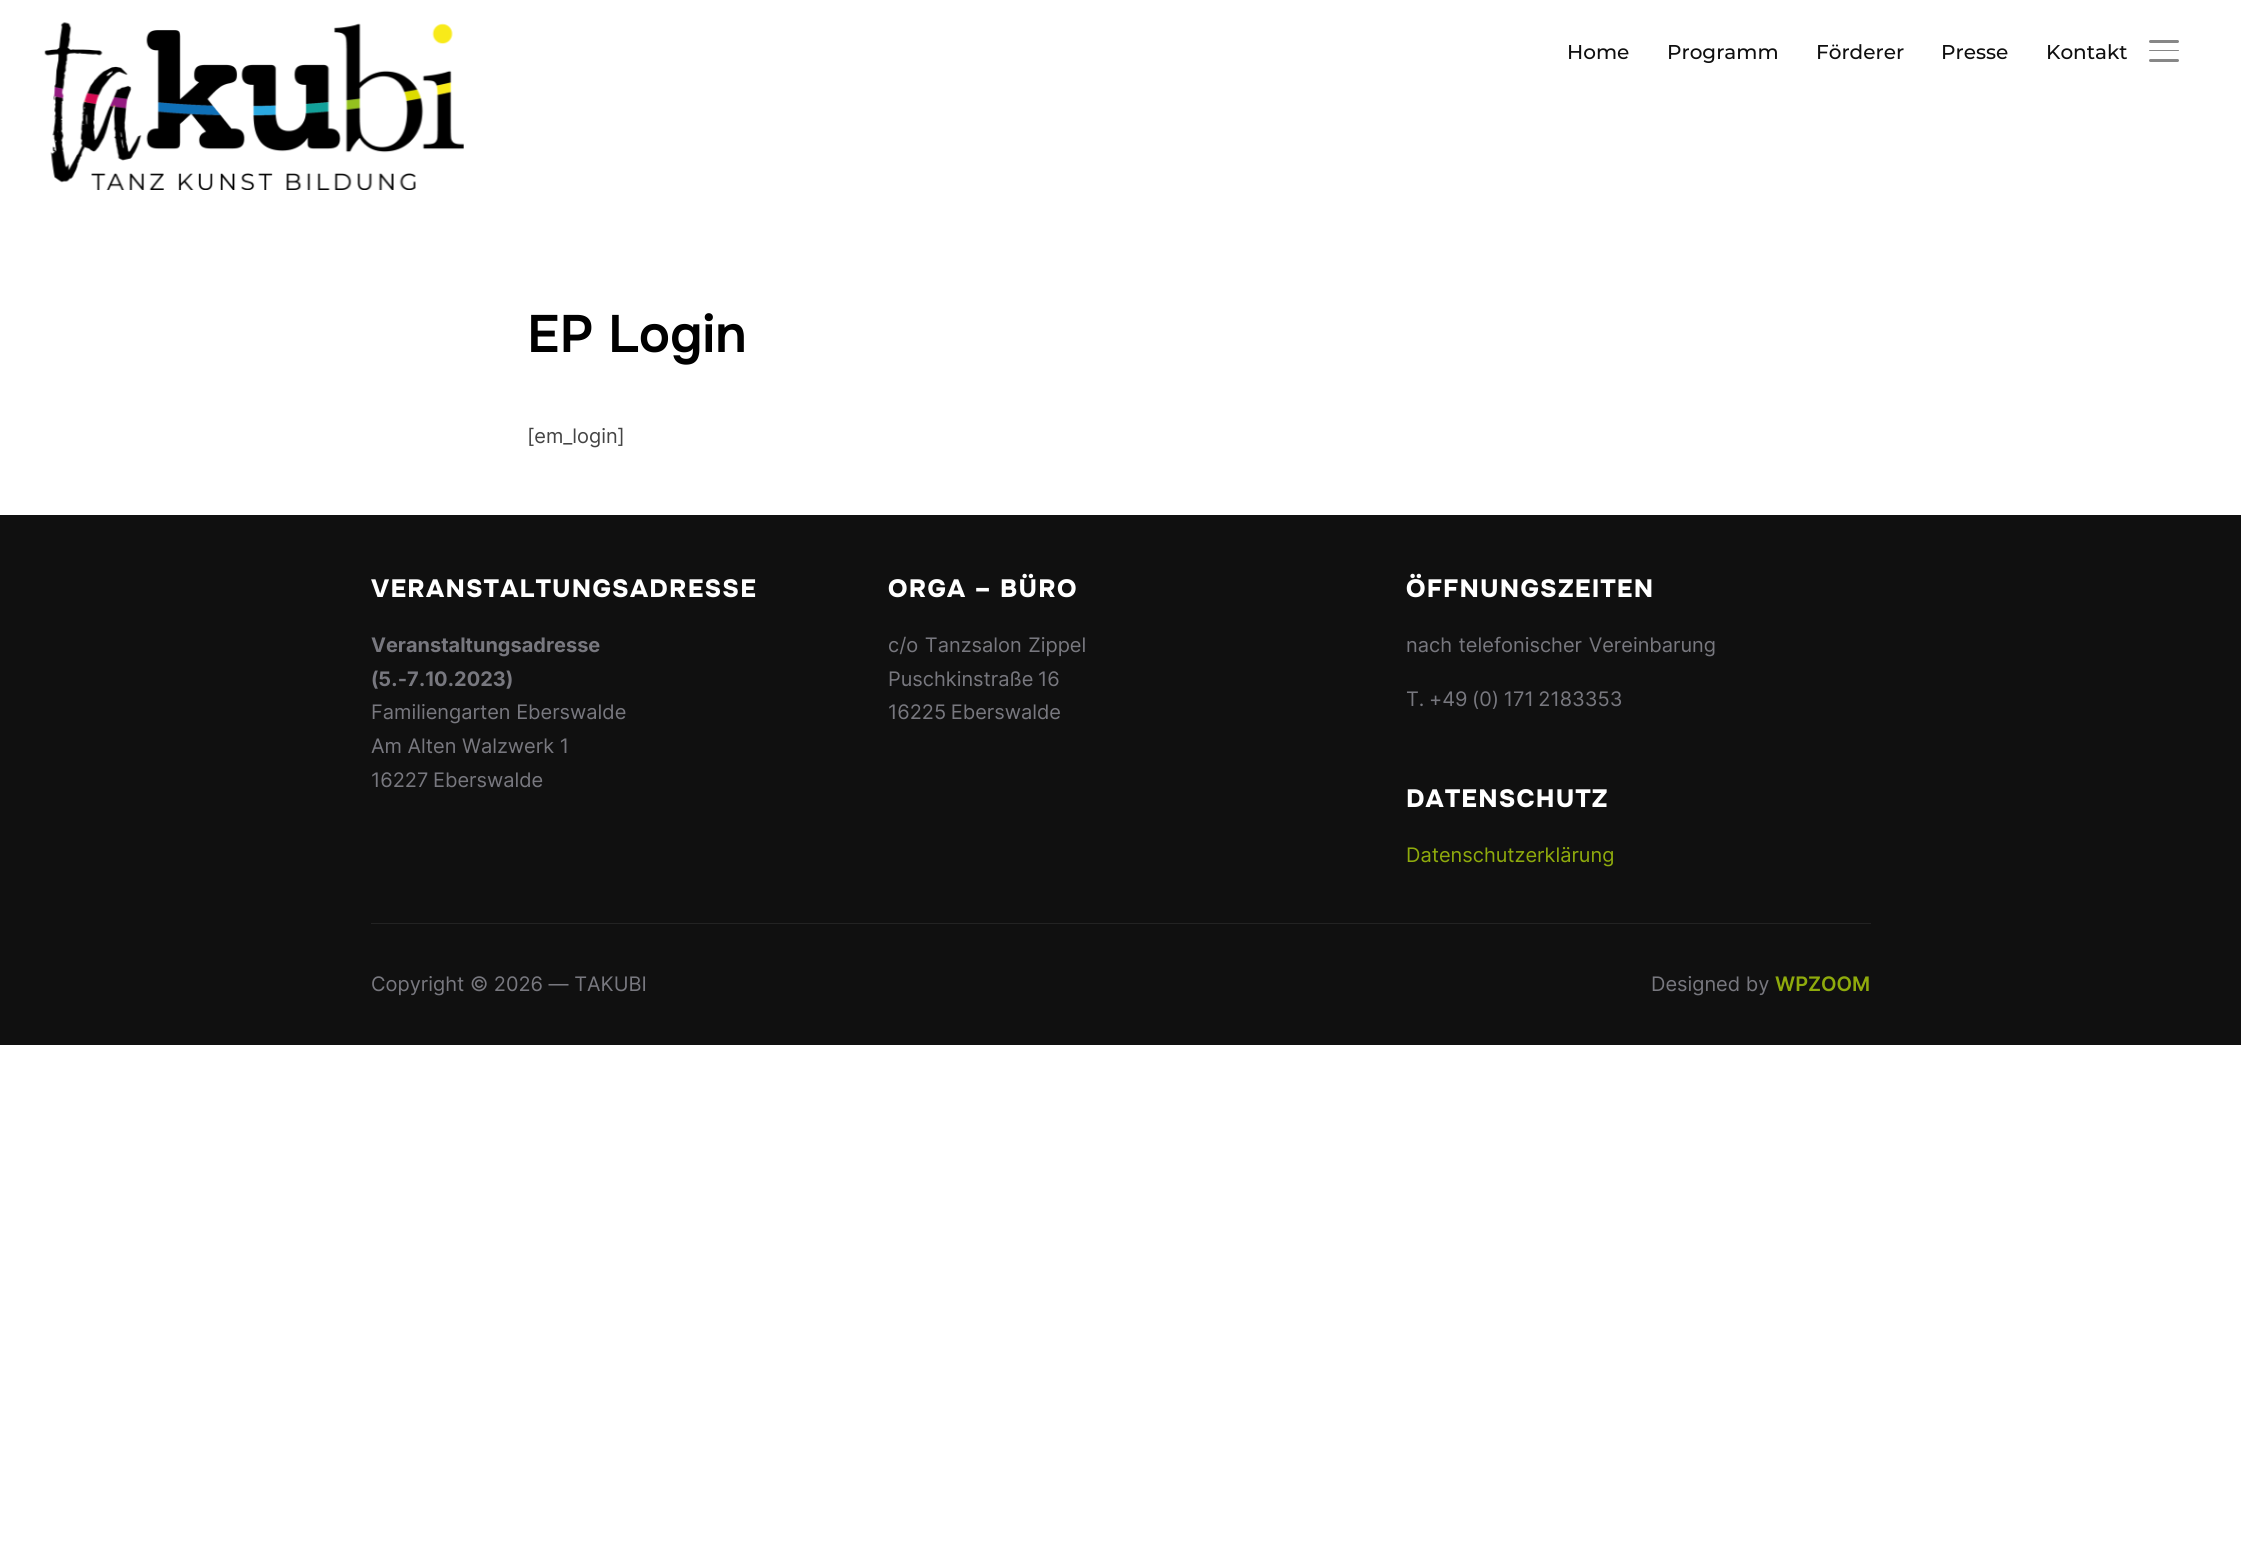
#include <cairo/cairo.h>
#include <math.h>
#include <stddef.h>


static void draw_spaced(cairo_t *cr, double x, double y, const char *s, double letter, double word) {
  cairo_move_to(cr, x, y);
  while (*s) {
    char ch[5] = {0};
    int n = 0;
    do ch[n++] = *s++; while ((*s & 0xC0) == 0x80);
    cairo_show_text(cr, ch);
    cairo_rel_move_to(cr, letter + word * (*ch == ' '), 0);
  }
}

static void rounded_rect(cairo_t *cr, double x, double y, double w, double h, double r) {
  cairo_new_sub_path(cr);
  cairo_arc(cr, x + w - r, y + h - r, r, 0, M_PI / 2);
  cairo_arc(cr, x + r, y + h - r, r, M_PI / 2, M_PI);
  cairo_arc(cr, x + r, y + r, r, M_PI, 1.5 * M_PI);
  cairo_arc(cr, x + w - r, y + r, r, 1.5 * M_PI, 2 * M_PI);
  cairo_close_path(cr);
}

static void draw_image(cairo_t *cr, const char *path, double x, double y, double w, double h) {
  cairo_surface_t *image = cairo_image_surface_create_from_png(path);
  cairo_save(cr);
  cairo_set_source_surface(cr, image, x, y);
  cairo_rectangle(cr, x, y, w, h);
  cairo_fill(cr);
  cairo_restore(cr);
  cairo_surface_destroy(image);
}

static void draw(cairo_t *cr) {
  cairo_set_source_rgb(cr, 1, 1, 1);
  cairo_paint(cr);
  draw_image(cr, "images/1.png", 44, 22, 420, 168);
  cairo_set_source_rgb(cr, 135 / 255.0, 135 / 255.0, 135 / 255.0);
  rounded_rect(cr, 2149, 40, 30, 3, 1.5);
  cairo_fill(cr);
  rounded_rect(cr, 2149, 50, 30, 1, 0.5);
  cairo_fill(cr);
  rounded_rect(cr, 2149, 59, 30, 3, 1.5);
  cairo_fill(cr);
  cairo_set_source_rgb(cr, 16 / 255.0, 16 / 255.0, 16 / 255.0);
  cairo_rectangle(cr, 0, 515, 2241, 530);
  cairo_fill(cr);
  cairo_set_source_rgb(cr, 35 / 255.0, 35 / 255.0, 35 / 255.0);
  cairo_rectangle(cr, 371, 923, 1500, 1);
  cairo_fill(cr);
  cairo_select_font_face(cr, "Montserrat Medium", CAIRO_FONT_SLANT_NORMAL, CAIRO_FONT_WEIGHT_NORMAL);
  cairo_set_font_size(cr, 20);
  cairo_set_source_rgb(cr, 15 / 255.0, 15 / 255.0, 15 / 255.0);
  cairo_move_to(cr, 1567, 59);
  cairo_show_text(cr, "Home");
  cairo_move_to(cr, 1667, 59);
  cairo_show_text(cr, "Programm");
  cairo_move_to(cr, 1816, 59);
  cairo_show_text(cr, "Förderer");
  cairo_move_to(cr, 1941, 59);
  cairo_show_text(cr, "Presse");
  cairo_move_to(cr, 2046, 59);
  cairo_show_text(cr, "Kontakt");
  cairo_select_font_face(cr, "Onest SemiBold", CAIRO_FONT_SLANT_NORMAL, CAIRO_FONT_WEIGHT_NORMAL);
  cairo_set_font_size(cr, 52.5);
  cairo_set_source_rgb(cr, 0, 0, 0);
  cairo_move_to(cr, 527, 352);
  cairo_show_text(cr, "EP Login");
  cairo_select_font_face(cr, "Inter", CAIRO_FONT_SLANT_NORMAL, CAIRO_FONT_WEIGHT_NORMAL);
  cairo_set_font_size(cr, 20);
  cairo_set_source_rgb(cr, 68 / 255.0, 68 / 255.0, 68 / 255.0);
  cairo_move_to(cr, 527, 443);
  cairo_show_text(cr, "[em_login]");
  cairo_select_font_face(cr, "Onest ExtraBold", CAIRO_FONT_SLANT_NORMAL, CAIRO_FONT_WEIGHT_NORMAL);
  cairo_set_font_size(cr, 25);
  cairo_set_source_rgb(cr, 1, 1, 1);
  draw_spaced(cr, 371, 597, "VERANSTALTUNGSADRESSE", 1.25, 0);
  cairo_select_font_face(cr, "Inter", CAIRO_FONT_SLANT_NORMAL, CAIRO_FONT_WEIGHT_BOLD);
  cairo_set_font_size(cr, 20);
  cairo_set_source_rgb(cr, 120 / 255.0, 120 / 255.0, 127 / 255.0);
  cairo_move_to(cr, 371, 652);
  cairo_show_text(cr, "Veranstaltungsadresse");
  cairo_move_to(cr, 371, 686);
  cairo_show_text(cr, "(5.-7.10.2023)");
  cairo_select_font_face(cr, "Inter", CAIRO_FONT_SLANT_NORMAL, CAIRO_FONT_WEIGHT_NORMAL);
  cairo_move_to(cr, 371, 719);
  cairo_show_text(cr, "Familiengarten Eberswalde");
  cairo_move_to(cr, 371, 753);
  cairo_show_text(cr, "Am Alten Walzwerk 1");
  draw_spaced(cr, 371, 787, "16227 Eberswalde", 0, -1);
  cairo_select_font_face(cr, "Onest ExtraBold", CAIRO_FONT_SLANT_NORMAL, CAIRO_FONT_WEIGHT_NORMAL);
  cairo_set_font_size(cr, 25);
  cairo_set_source_rgb(cr, 1, 1, 1);
  draw_spaced(cr, 888, 597, "ORGA – BÜRO", 1.25, 0);
  cairo_select_font_face(cr, "Inter", CAIRO_FONT_SLANT_NORMAL, CAIRO_FONT_WEIGHT_NORMAL);
  cairo_set_font_size(cr, 20);
  cairo_set_source_rgb(cr, 120 / 255.0, 120 / 255.0, 127 / 255.0);
  draw_spaced(cr, 888, 652, "c/o Tanzsalon Zippel", 0, 1);
  draw_spaced(cr, 888, 686, "Puschkinstraße 16", 0, -1);
  draw_spaced(cr, 888, 719, "16225 Eberswalde", 0, -1);
  cairo_select_font_face(cr, "Onest ExtraBold", CAIRO_FONT_SLANT_NORMAL, CAIRO_FONT_WEIGHT_NORMAL);
  cairo_set_font_size(cr, 25);
  cairo_set_source_rgb(cr, 1, 1, 1);
  draw_spaced(cr, 1406, 597, "ÖFFNUNGSZEITEN", 1.25, 0);
  cairo_select_font_face(cr, "Inter", CAIRO_FONT_SLANT_NORMAL, CAIRO_FONT_WEIGHT_NORMAL);
  cairo_set_font_size(cr, 20);
  cairo_set_source_rgb(cr, 120 / 255.0, 120 / 255.0, 127 / 255.0);
  draw_spaced(cr, 1406, 652, "nach telefonischer Vereinbarung", 0, 1);
  draw_spaced(cr, 1406, 706, "T. +49 (0) 171 2183353", 0, -1);
  cairo_select_font_face(cr, "Onest ExtraBold", CAIRO_FONT_SLANT_NORMAL, CAIRO_FONT_WEIGHT_NORMAL);
  cairo_set_font_size(cr, 25);
  cairo_set_source_rgb(cr, 1, 1, 1);
  draw_spaced(cr, 1406, 807, "DATENSCHUTZ", 1.25, 0);
  cairo_select_font_face(cr, "Inter", CAIRO_FONT_SLANT_NORMAL, CAIRO_FONT_WEIGHT_NORMAL);
  cairo_set_font_size(cr, 20);
  cairo_set_source_rgb(cr, 143 / 255.0, 171 / 255.0, 12 / 255.0);
  cairo_move_to(cr, 1406, 862);
  cairo_show_text(cr, "Datenschutzerklärung");
  cairo_set_source_rgb(cr, 120 / 255.0, 120 / 255.0, 127 / 255.0);
  cairo_move_to(cr, 371, 991);
  cairo_show_text(cr, "Copyright © 2026 — TAKUBI");
  cairo_move_to(cr, 1651, 991);
  cairo_show_text(cr, "Designed by");
  cairo_select_font_face(cr, "Inter SemiBold", CAIRO_FONT_SLANT_NORMAL, CAIRO_FONT_WEIGHT_NORMAL);
  cairo_set_source_rgb(cr, 143 / 255.0, 171 / 255.0, 12 / 255.0);
  cairo_move_to(cr, 1775, 991);
  cairo_show_text(cr, "WPZOOM");
}

int main(void) {
  cairo_surface_t *surface = cairo_image_surface_create(CAIRO_FORMAT_RGB24, 2241, 1557);
  cairo_t *cr = cairo_create(surface);
  cairo_font_options_t *options = cairo_font_options_create();
  cairo_font_options_set_hint_metrics(options, CAIRO_HINT_METRICS_OFF);
  cairo_font_options_set_hint_style(options, CAIRO_HINT_STYLE_NONE);
  cairo_set_font_options(cr, options);
  cairo_set_miter_limit(cr, 4);
  draw(cr);
  cairo_surface_write_to_png(surface, "out.png");
  cairo_font_options_destroy(options);
  cairo_destroy(cr);
  cairo_surface_destroy(surface);
  return 0;
}
